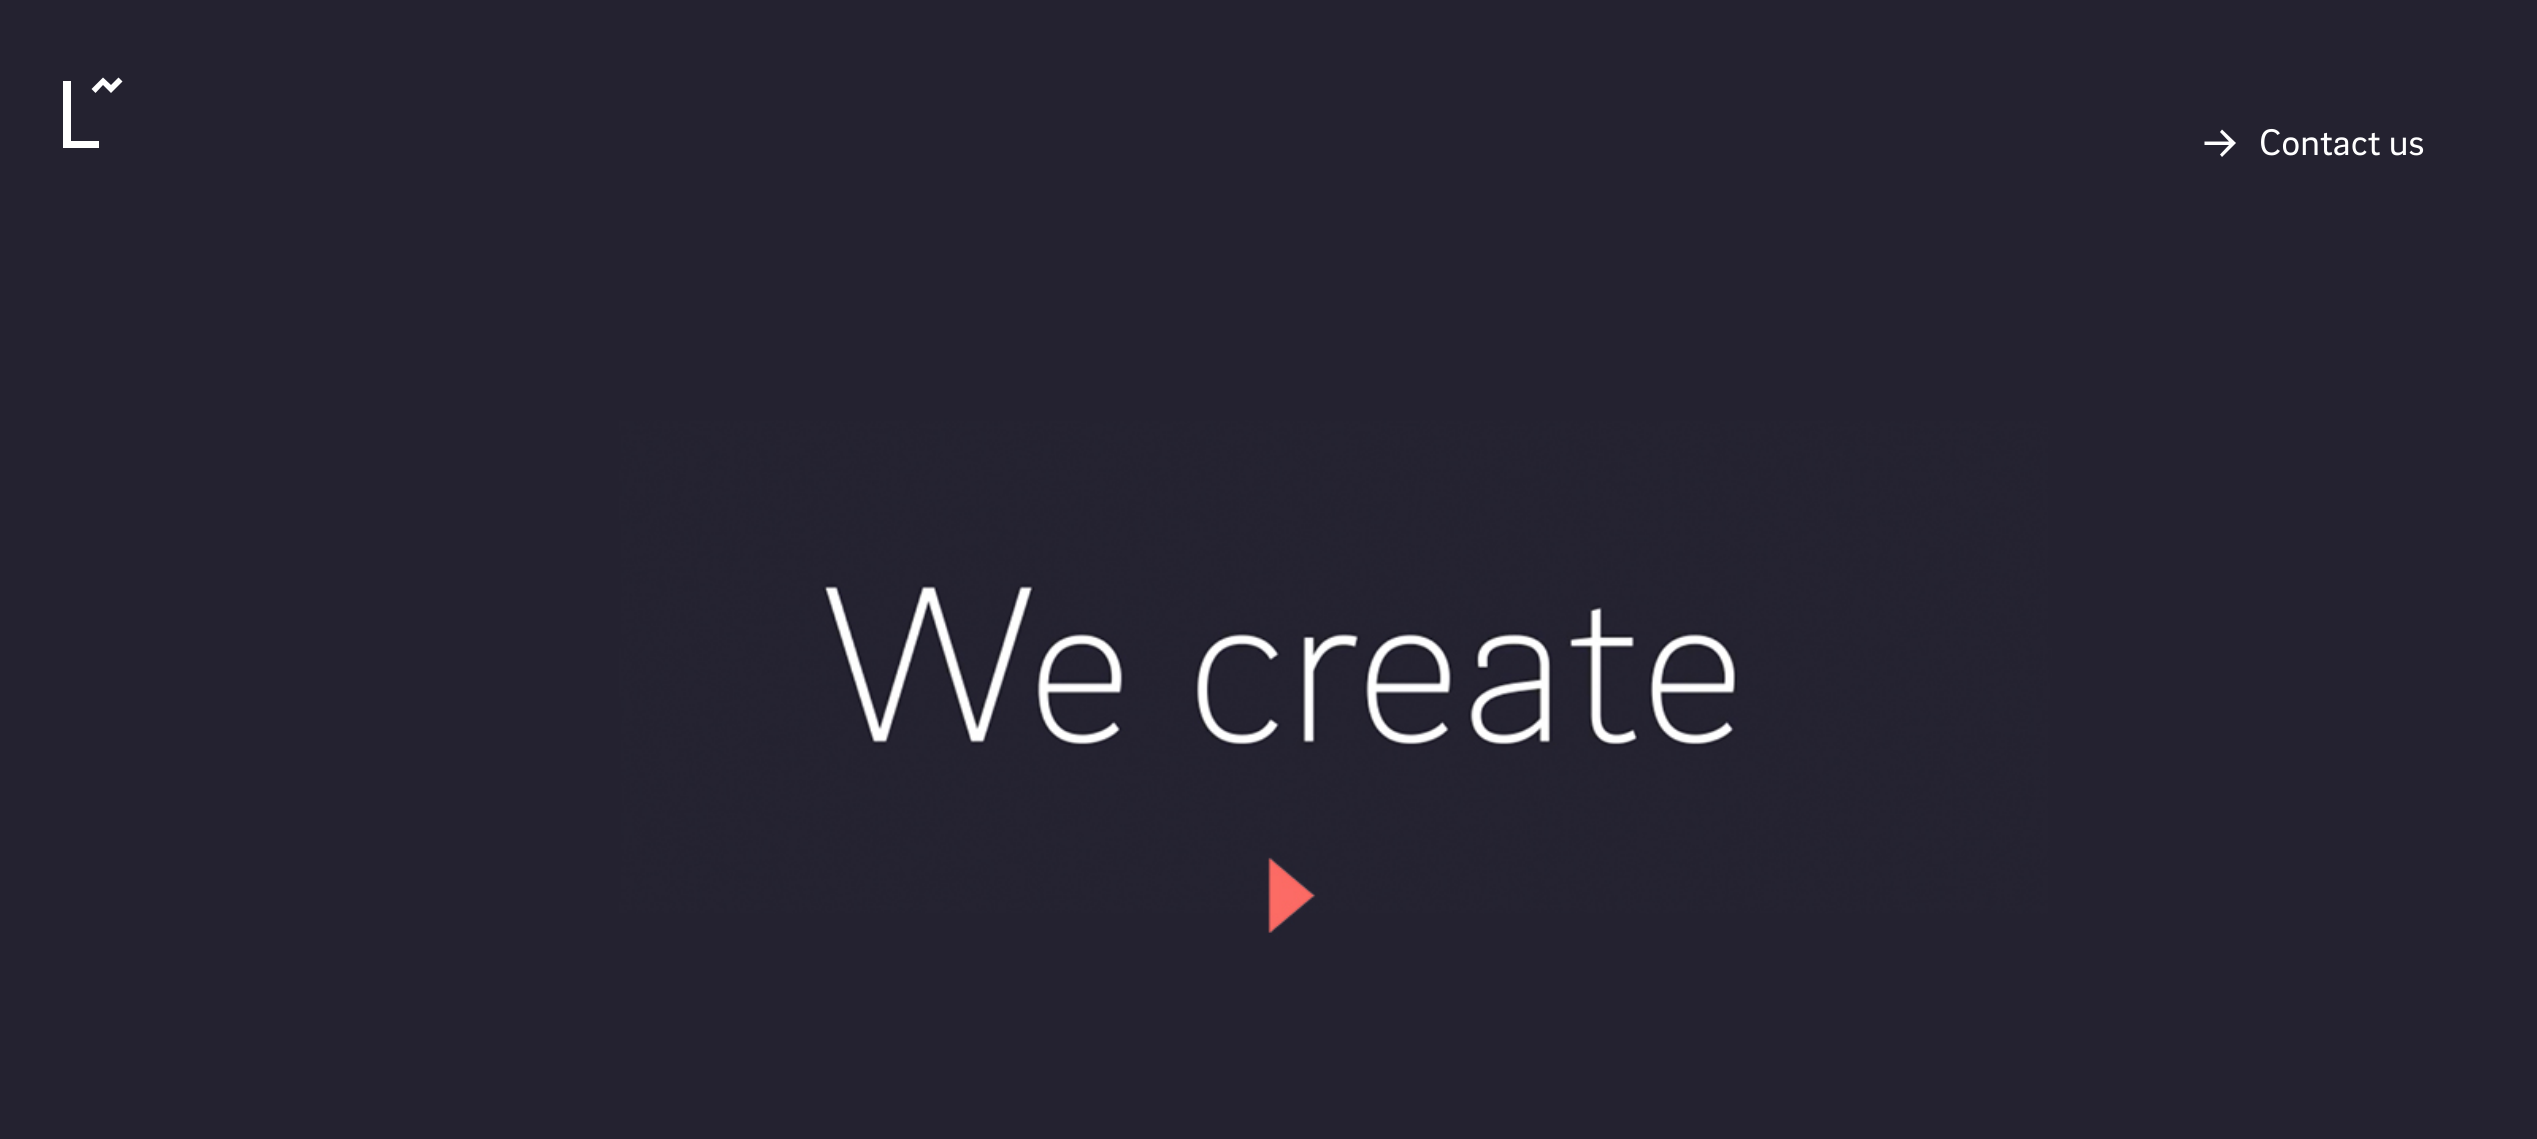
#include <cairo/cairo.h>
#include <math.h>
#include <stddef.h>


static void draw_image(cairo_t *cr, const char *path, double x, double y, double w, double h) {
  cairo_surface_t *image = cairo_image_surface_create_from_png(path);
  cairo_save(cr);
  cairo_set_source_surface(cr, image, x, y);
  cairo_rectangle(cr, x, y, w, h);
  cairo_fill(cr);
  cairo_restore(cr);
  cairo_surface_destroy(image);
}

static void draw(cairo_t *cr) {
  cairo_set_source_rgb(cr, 1, 1, 1);
  cairo_paint(cr);
  draw_image(cr, "images/1.png", 0, 0, 2537, 1139);
  cairo_save(cr);
  cairo_rectangle(cr, 63, 63, 60, 100);
  cairo_clip(cr);
  cairo_set_source_rgb(cr, 1, 1, 1);
  cairo_new_path(cr);
  cairo_move_to(cr, 62, 81);
  cairo_line_to(cr, 62, 148);
  cairo_line_to(cr, 99, 148);
  cairo_line_to(cr, 99, 141);
  cairo_line_to(cr, 71, 141);
  cairo_line_to(cr, 71, 81);
  cairo_close_path(cr);
  cairo_fill(cr);
  cairo_restore(cr);
  cairo_set_source_rgb(cr, 1, 1, 1);
  cairo_new_path(cr);
  cairo_move_to(cr, 118.5, 77.5);
  cairo_line_to(cr, 111, 85);
  cairo_line_to(cr, 103, 77.5);
  cairo_line_to(cr, 91.5, 89);
  cairo_line_to(cr, 95.5, 93);
  cairo_line_to(cr, 103, 85);
  cairo_line_to(cr, 111, 93);
  cairo_line_to(cr, 122.5, 81.5);
  cairo_close_path(cr);
  cairo_fill(cr);
  cairo_new_path(cr);
  cairo_move_to(cr, 2236, 143);
  cairo_line_to(cr, 2222, 129.5);
  cairo_line_to(cr, 2220, 132);
  cairo_line_to(cr, 2229, 141.5);
  cairo_line_to(cr, 2204.5, 141.5);
  cairo_line_to(cr, 2204.5, 145);
  cairo_line_to(cr, 2229, 145);
  cairo_line_to(cr, 2220, 154.5);
  cairo_line_to(cr, 2222, 157);
  cairo_close_path(cr);
  cairo_fill(cr);
  cairo_select_font_face(cr, "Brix", CAIRO_FONT_SLANT_NORMAL, CAIRO_FONT_WEIGHT_NORMAL);
  cairo_set_font_size(cr, 38);
  cairo_move_to(cr, 2259, 155);
  cairo_show_text(cr, "Contact us");
}

int main(void) {
  cairo_surface_t *surface = cairo_image_surface_create(CAIRO_FORMAT_RGB24, 2537, 1139);
  cairo_t *cr = cairo_create(surface);
  cairo_font_options_t *options = cairo_font_options_create();
  cairo_font_options_set_hint_metrics(options, CAIRO_HINT_METRICS_OFF);
  cairo_font_options_set_hint_style(options, CAIRO_HINT_STYLE_NONE);
  cairo_set_font_options(cr, options);
  cairo_set_miter_limit(cr, 4);
  draw(cr);
  cairo_surface_write_to_png(surface, "out.png");
  cairo_font_options_destroy(options);
  cairo_destroy(cr);
  cairo_surface_destroy(surface);
  return 0;
}
